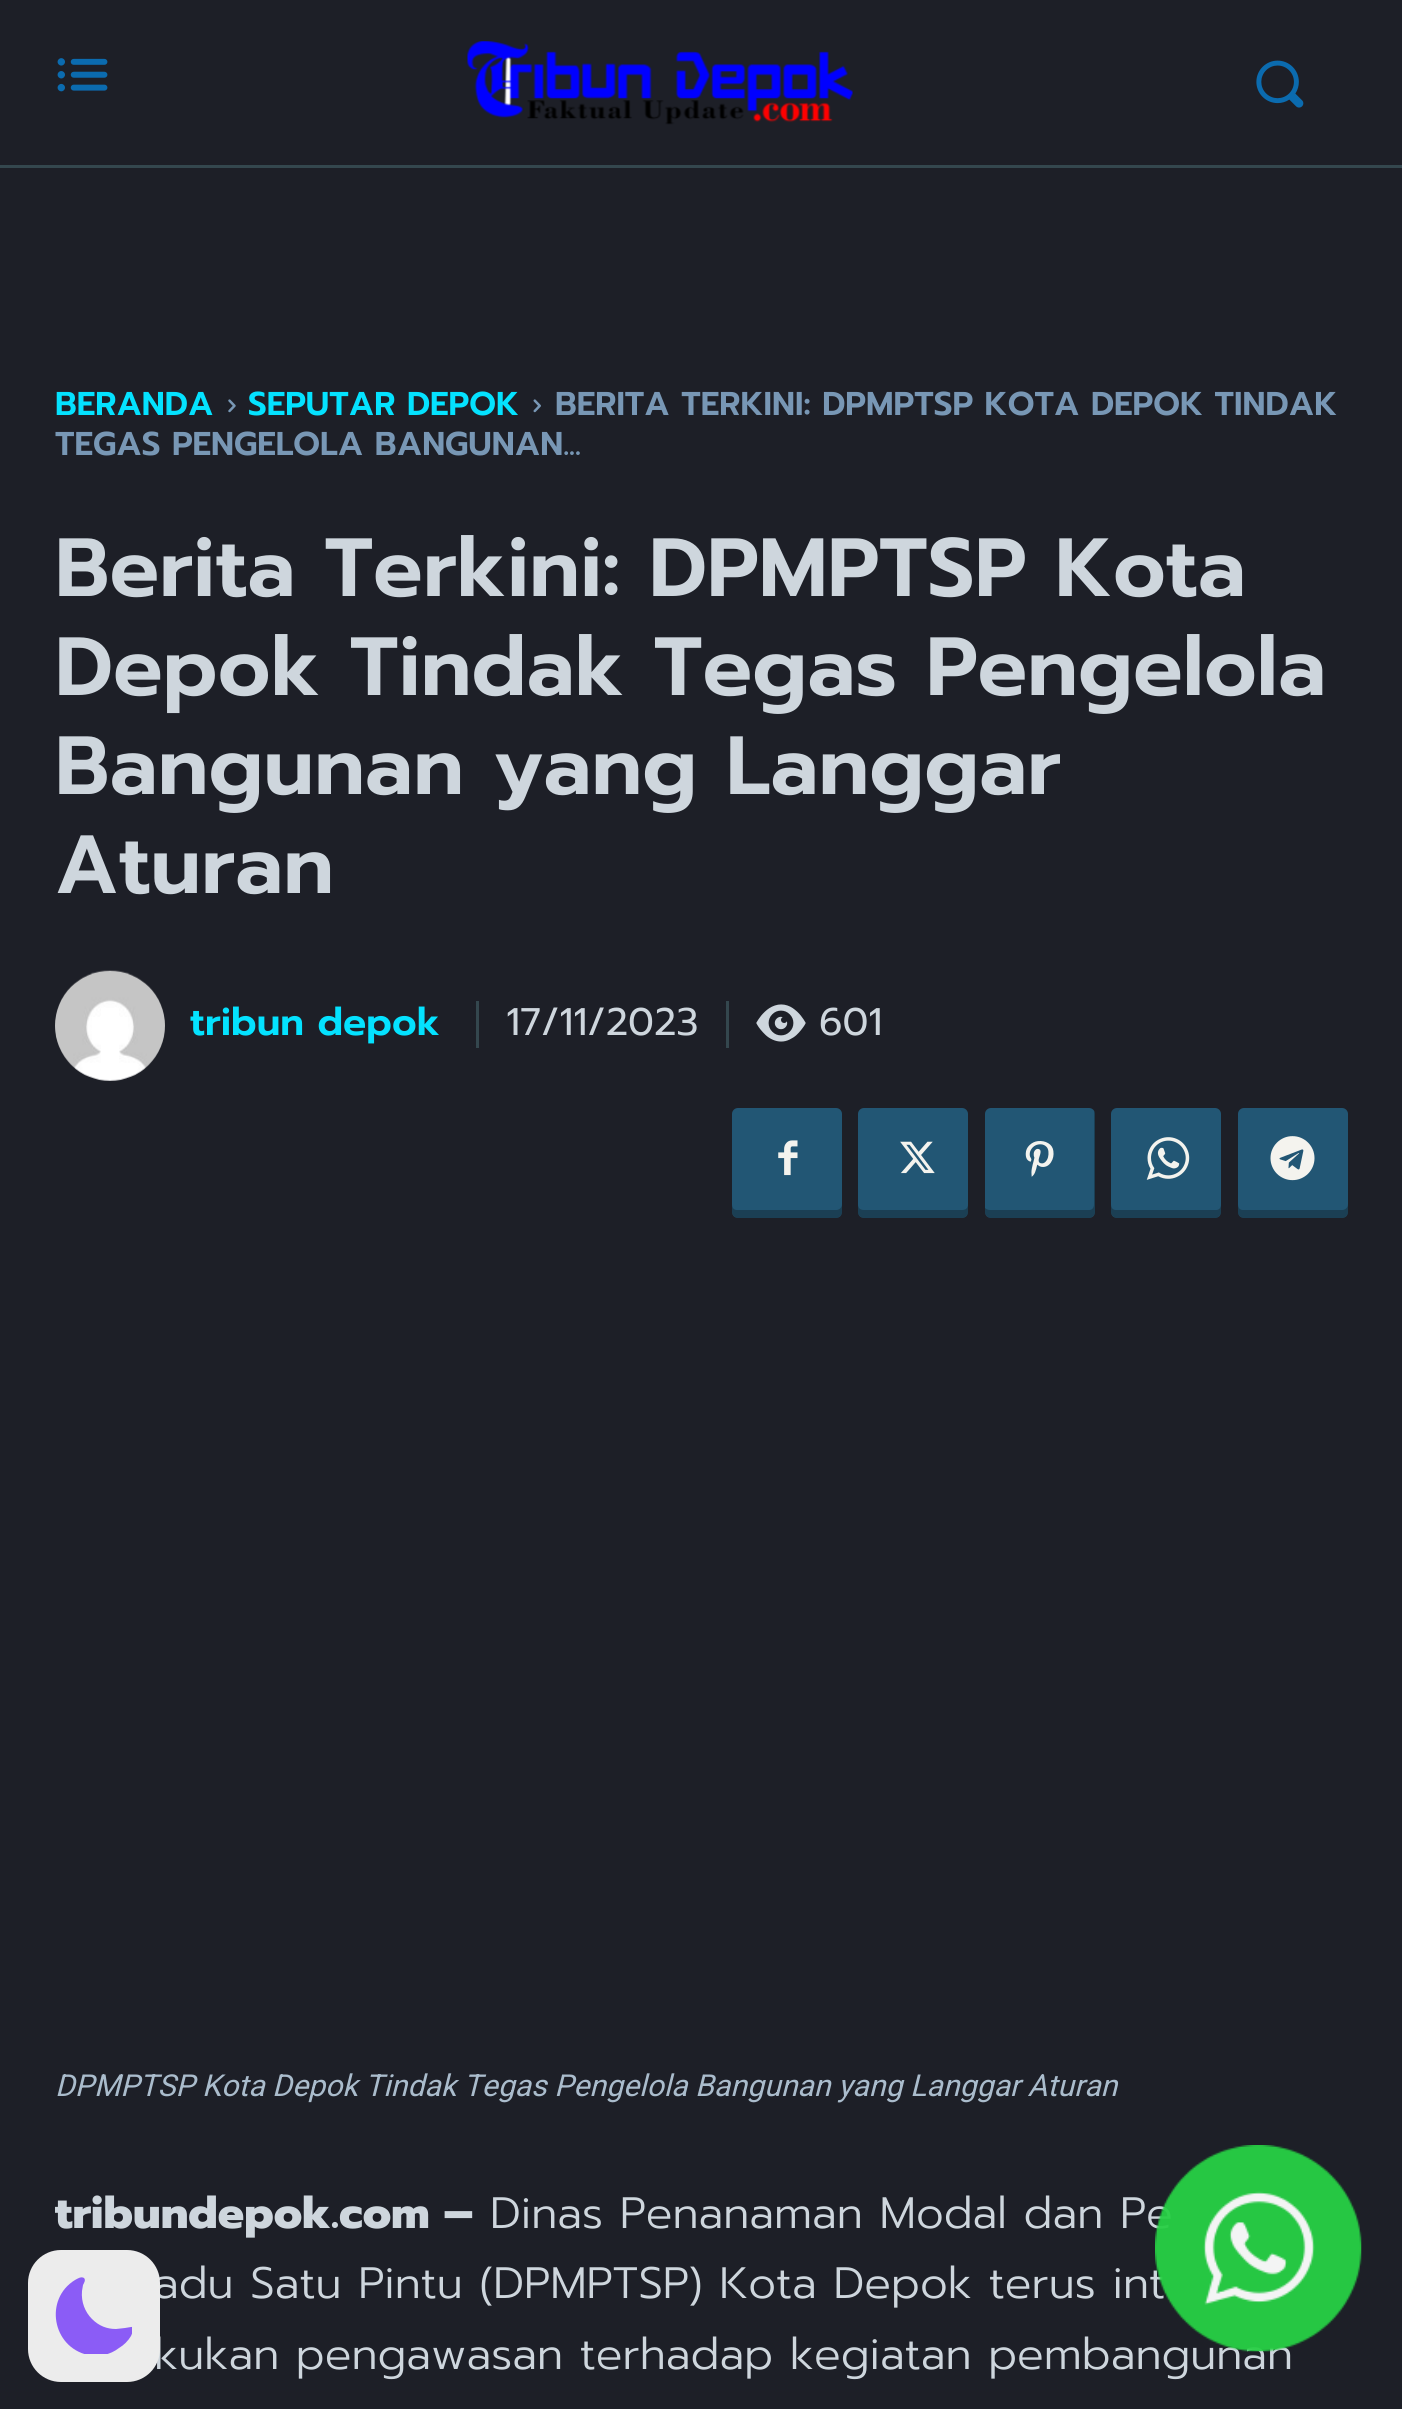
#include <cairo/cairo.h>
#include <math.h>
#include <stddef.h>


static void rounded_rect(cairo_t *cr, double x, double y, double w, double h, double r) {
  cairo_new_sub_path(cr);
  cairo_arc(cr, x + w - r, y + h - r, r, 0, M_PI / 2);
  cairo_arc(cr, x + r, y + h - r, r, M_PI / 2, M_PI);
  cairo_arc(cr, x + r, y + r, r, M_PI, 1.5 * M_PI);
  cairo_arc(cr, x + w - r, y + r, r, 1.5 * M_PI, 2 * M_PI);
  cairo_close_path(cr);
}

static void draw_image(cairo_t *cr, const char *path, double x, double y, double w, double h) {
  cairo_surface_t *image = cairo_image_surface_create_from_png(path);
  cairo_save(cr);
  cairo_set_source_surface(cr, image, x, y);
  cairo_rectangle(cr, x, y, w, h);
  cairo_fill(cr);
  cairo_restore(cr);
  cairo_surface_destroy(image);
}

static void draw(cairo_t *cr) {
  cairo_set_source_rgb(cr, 29 / 255.0, 31 / 255.0, 39 / 255.0);
  cairo_paint(cr);
  draw_image(cr, "images/1.png", 57, 58, 51, 34);
  draw_image(cr, "images/2.png", 467, 41, 386, 84);
  draw_image(cr, "images/3.png", 1256, 60, 48, 48);
  cairo_set_source_rgb(cr, 52 / 255.0, 71 / 255.0, 78 / 255.0);
  cairo_rectangle(cr, 0, 165, 1402, 3);
  cairo_fill(cr);
  draw_image(cr, "images/4.png", 228, 399, 8, 14);
  draw_image(cr, "images/5.png", 533, 399, 8, 14);
  draw_image(cr, "images/6.png", 55, 970, 110, 111);
  cairo_rectangle(cr, 726, 1001, 3, 47);
  cairo_fill(cr);
  cairo_rectangle(cr, 476, 1001, 3, 47);
  cairo_fill(cr);
  draw_image(cr, "images/7.png", 756, 1004, 50, 38);
  cairo_set_source_rgb(cr, 34 / 255.0, 86 / 255.0, 116 / 255.0);
  rounded_rect(cr, 732, 1108, 110, 110, 6);
  cairo_fill(cr);
  cairo_set_source_rgba(cr, 13 / 255.0, 13 / 255.0, 13 / 255.0, 0.31);
  cairo_new_path(cr);
  cairo_move_to(cr, 732, 1204);
  cairo_line_to(cr, 732, 1212);
  cairo_curve_to(cr, 732, 1215, 735, 1218, 738, 1218);
  cairo_line_to(cr, 836, 1218);
  cairo_curve_to(cr, 839, 1218, 842, 1215, 842, 1212);
  cairo_line_to(cr, 842, 1204);
  cairo_curve_to(cr, 842, 1208, 839, 1210, 836, 1210);
  cairo_line_to(cr, 737, 1210);
  cairo_curve_to(cr, 734, 1210, 732, 1208, 732, 1204);
  cairo_close_path(cr);
  cairo_fill(cr);
  draw_image(cr, "images/8.png", 778, 1140, 20, 36);
  cairo_set_source_rgb(cr, 34 / 255.0, 86 / 255.0, 116 / 255.0);
  rounded_rect(cr, 858, 1108, 110, 110, 6);
  cairo_fill(cr);
  cairo_set_source_rgba(cr, 13 / 255.0, 13 / 255.0, 13 / 255.0, 0.31);
  cairo_new_path(cr);
  cairo_move_to(cr, 858, 1204);
  cairo_line_to(cr, 858, 1212);
  cairo_curve_to(cr, 858, 1215, 861, 1218, 864, 1218);
  cairo_line_to(cr, 962, 1218);
  cairo_curve_to(cr, 965, 1218, 968, 1215, 968, 1212);
  cairo_line_to(cr, 968, 1204);
  cairo_curve_to(cr, 968, 1208, 966, 1210, 962, 1210);
  cairo_line_to(cr, 864, 1210);
  cairo_curve_to(cr, 860, 1210, 858, 1208, 858, 1204);
  cairo_close_path(cr);
  cairo_fill(cr);
  draw_image(cr, "images/9.png", 900, 1141, 35, 33);
  cairo_set_source_rgb(cr, 34 / 255.0, 86 / 255.0, 116 / 255.0);
  rounded_rect(cr, 985, 1108, 110, 110, 6);
  cairo_fill(cr);
  cairo_set_source_rgba(cr, 13 / 255.0, 13 / 255.0, 13 / 255.0, 0.31);
  cairo_new_path(cr);
  cairo_move_to(cr, 985, 1208);
  cairo_line_to(cr, 985, 1212);
  cairo_curve_to(cr, 985, 1215, 988, 1218, 991, 1218);
  cairo_line_to(cr, 1089, 1218);
  cairo_curve_to(cr, 1092, 1218, 1095, 1215, 1095, 1212);
  cairo_line_to(cr, 1095, 1114);
  cairo_curve_to(cr, 1095, 1113, 1095, 1112, 1094, 1111);
  cairo_line_to(cr, 1094, 1204);
  cairo_curve_to(cr, 1094, 1208, 1092, 1210, 1089, 1210);
  cairo_line_to(cr, 990, 1210);
  cairo_curve_to(cr, 988, 1210, 986, 1209, 985, 1208);
  cairo_close_path(cr);
  cairo_fill(cr);
  draw_image(cr, "images/10.png", 1025, 1141, 29, 36);
  cairo_set_source_rgb(cr, 34 / 255.0, 86 / 255.0, 116 / 255.0);
  rounded_rect(cr, 1111, 1108, 110, 110, 6);
  cairo_fill(cr);
  cairo_set_source_rgba(cr, 13 / 255.0, 13 / 255.0, 13 / 255.0, 0.31);
  cairo_new_path(cr);
  cairo_move_to(cr, 1111, 1204);
  cairo_line_to(cr, 1111, 1212);
  cairo_curve_to(cr, 1111, 1215, 1114, 1218, 1117, 1218);
  cairo_line_to(cr, 1215, 1218);
  cairo_curve_to(cr, 1218, 1218, 1221, 1215, 1221, 1212);
  cairo_line_to(cr, 1221, 1204);
  cairo_curve_to(cr, 1221, 1208, 1219, 1210, 1216, 1210);
  cairo_line_to(cr, 1116, 1210);
  cairo_curve_to(cr, 1113, 1210, 1111, 1208, 1111, 1204);
  cairo_close_path(cr);
  cairo_fill(cr);
  draw_image(cr, "images/11.png", 1146, 1137, 44, 43);
  cairo_set_source_rgb(cr, 34 / 255.0, 86 / 255.0, 116 / 255.0);
  rounded_rect(cr, 1238, 1108, 110, 110, 6);
  cairo_fill(cr);
  cairo_set_source_rgba(cr, 13 / 255.0, 13 / 255.0, 13 / 255.0, 0.31);
  cairo_new_path(cr);
  cairo_move_to(cr, 1238, 1204);
  cairo_line_to(cr, 1238, 1212);
  cairo_curve_to(cr, 1238, 1215, 1241, 1218, 1244, 1218);
  cairo_line_to(cr, 1342, 1218);
  cairo_curve_to(cr, 1345, 1218, 1348, 1215, 1348, 1212);
  cairo_line_to(cr, 1348, 1204);
  cairo_curve_to(cr, 1348, 1208, 1345, 1210, 1342, 1210);
  cairo_line_to(cr, 1243, 1210);
  cairo_curve_to(cr, 1240, 1210, 1238, 1208, 1238, 1204);
  cairo_close_path(cr);
  cairo_fill(cr);
  draw_image(cr, "images/12.png", 1270, 1136, 45, 45);
  cairo_select_font_face(cr, "Prompt SemiBold", CAIRO_FONT_SLANT_NORMAL, CAIRO_FONT_WEIGHT_NORMAL);
  cairo_set_font_size(cr, 33);
  cairo_set_source_rgb(cr, 4 / 255.0, 226 / 255.0, 1);
  cairo_move_to(cr, 55, 415);
  cairo_show_text(cr, "BERANDA");
  cairo_move_to(cr, 248, 415);
  cairo_show_text(cr, "SEPUTAR DEPOK");
  cairo_set_source_rgb(cr, 120 / 255.0, 151 / 255.0, 181 / 255.0);
  cairo_move_to(cr, 555, 415);
  cairo_show_text(cr, "BERITA TERKINI: DPMPTSP KOTA DEPOK TINDAK");
  cairo_move_to(cr, 55, 455);
  cairo_show_text(cr, "TEGAS PENGELOLA BANGUNAN...");
  cairo_set_font_size(cr, 82.5);
  cairo_set_source_rgb(cr, 206 / 255.0, 214 / 255.0, 221 / 255.0);
  cairo_move_to(cr, 55, 596);
  cairo_show_text(cr, "Berita Terkini: DPMPTSP Kota");
  cairo_move_to(cr, 55, 695);
  cairo_show_text(cr, "Depok Tindak Tegas Pengelola");
  cairo_move_to(cr, 55, 794);
  cairo_show_text(cr, "Bangunan yang Langgar");
  cairo_move_to(cr, 55, 893);
  cairo_show_text(cr, "Aturan");
  cairo_set_font_size(cr, 38.5);
  cairo_set_source_rgb(cr, 4 / 255.0, 226 / 255.0, 1);
  cairo_move_to(cr, 190, 1035);
  cairo_show_text(cr, "tribun depok");
  cairo_select_font_face(cr, "Prompt", CAIRO_FONT_SLANT_NORMAL, CAIRO_FONT_WEIGHT_NORMAL);
  cairo_set_source_rgb(cr, 206 / 255.0, 214 / 255.0, 221 / 255.0);
  cairo_move_to(cr, 506, 1035);
  cairo_show_text(cr, "17/11/2023");
  cairo_move_to(cr, 819, 1035);
  cairo_show_text(cr, "601");
  cairo_select_font_face(cr, "Roboto", CAIRO_FONT_SLANT_ITALIC, CAIRO_FONT_WEIGHT_NORMAL);
  cairo_set_font_size(cr, 30.25);
  cairo_set_source_rgb(cr, 170 / 255.0, 188 / 255.0, 204 / 255.0);
  cairo_move_to(cr, 55, 2096);
  cairo_show_text(cr, "DPMPTSP Kota Depok Tindak Tegas Pengelola Bangunan yang Langgar Aturan");
  cairo_select_font_face(cr, "Prompt ExtraBold", CAIRO_FONT_SLANT_NORMAL, CAIRO_FONT_WEIGHT_NORMAL);
  cairo_set_font_size(cr, 44);
  cairo_set_source_rgb(cr, 206 / 255.0, 214 / 255.0, 221 / 255.0);
  cairo_move_to(cr, 55, 2228);
  cairo_show_text(cr, "tribundepok.com –");
  cairo_select_font_face(cr, "Prompt Light", CAIRO_FONT_SLANT_NORMAL, CAIRO_FONT_WEIGHT_NORMAL);
  cairo_move_to(cr, 490, 2228);
  cairo_show_text(cr, "Dinas Penanaman Modal dan Pe");
  cairo_move_to(cr, 154, 2298);
  cairo_show_text(cr, "adu Satu Pintu (DPMPTSP) Kota Depok terus int");
  cairo_move_to(cr, 154, 2369);
  cairo_show_text(cr, "kukan pengawasan terhadap kegiatan pembangunan");
  cairo_set_source_rgb(cr, 236 / 255.0, 236 / 255.0, 236 / 255.0);
  rounded_rect(cr, 28, 2250, 132, 132, 33);
  cairo_fill(cr);
  cairo_save(cr);
  cairo_rectangle(cr, 55, 2277, 77, 77);
  cairo_clip(cr);
  cairo_set_source_rgb(cr, 139 / 255.0, 92 / 255.0, 246 / 255.0);
  cairo_set_fill_rule(cr, CAIRO_FILL_RULE_EVEN_ODD);
  cairo_new_path(cr);
  cairo_move_to(cr, 84, 2278);
  cairo_curve_to(cr, 86, 2280, 84, 2283, 83, 2285);
  cairo_line_to(cr, 82, 2291);
  cairo_curve_to(cr, 81, 2302, 85, 2312, 92, 2319);
  cairo_curve_to(cr, 99, 2326, 107, 2329, 116, 2329);
  cairo_line_to(cr, 125, 2328);
  cairo_line_to(cr, 131, 2327);
  cairo_curve_to(cr, 137, 2326, 131, 2335, 131, 2336);
  cairo_curve_to(cr, 128, 2341, 124, 2345, 119, 2348);
  cairo_curve_to(cr, 110, 2355, 99, 2357, 88, 2355);
  cairo_curve_to(cr, 52, 2347, 44, 2299, 75, 2280);
  cairo_curve_to(cr, 77, 2279, 81, 2276, 84, 2278);
  cairo_close_path(cr);
  cairo_fill(cr);
  cairo_restore(cr);
  draw_image(cr, "images/13.png", 1155, 2145, 207, 207);
}

int main(void) {
  cairo_surface_t *surface = cairo_image_surface_create(CAIRO_FORMAT_RGB24, 1402, 2409);
  cairo_t *cr = cairo_create(surface);
  cairo_font_options_t *options = cairo_font_options_create();
  cairo_font_options_set_hint_metrics(options, CAIRO_HINT_METRICS_OFF);
  cairo_font_options_set_hint_style(options, CAIRO_HINT_STYLE_NONE);
  cairo_set_font_options(cr, options);
  cairo_set_miter_limit(cr, 4);
  draw(cr);
  cairo_surface_write_to_png(surface, "out.png");
  cairo_font_options_destroy(options);
  cairo_destroy(cr);
  cairo_surface_destroy(surface);
  return 0;
}
